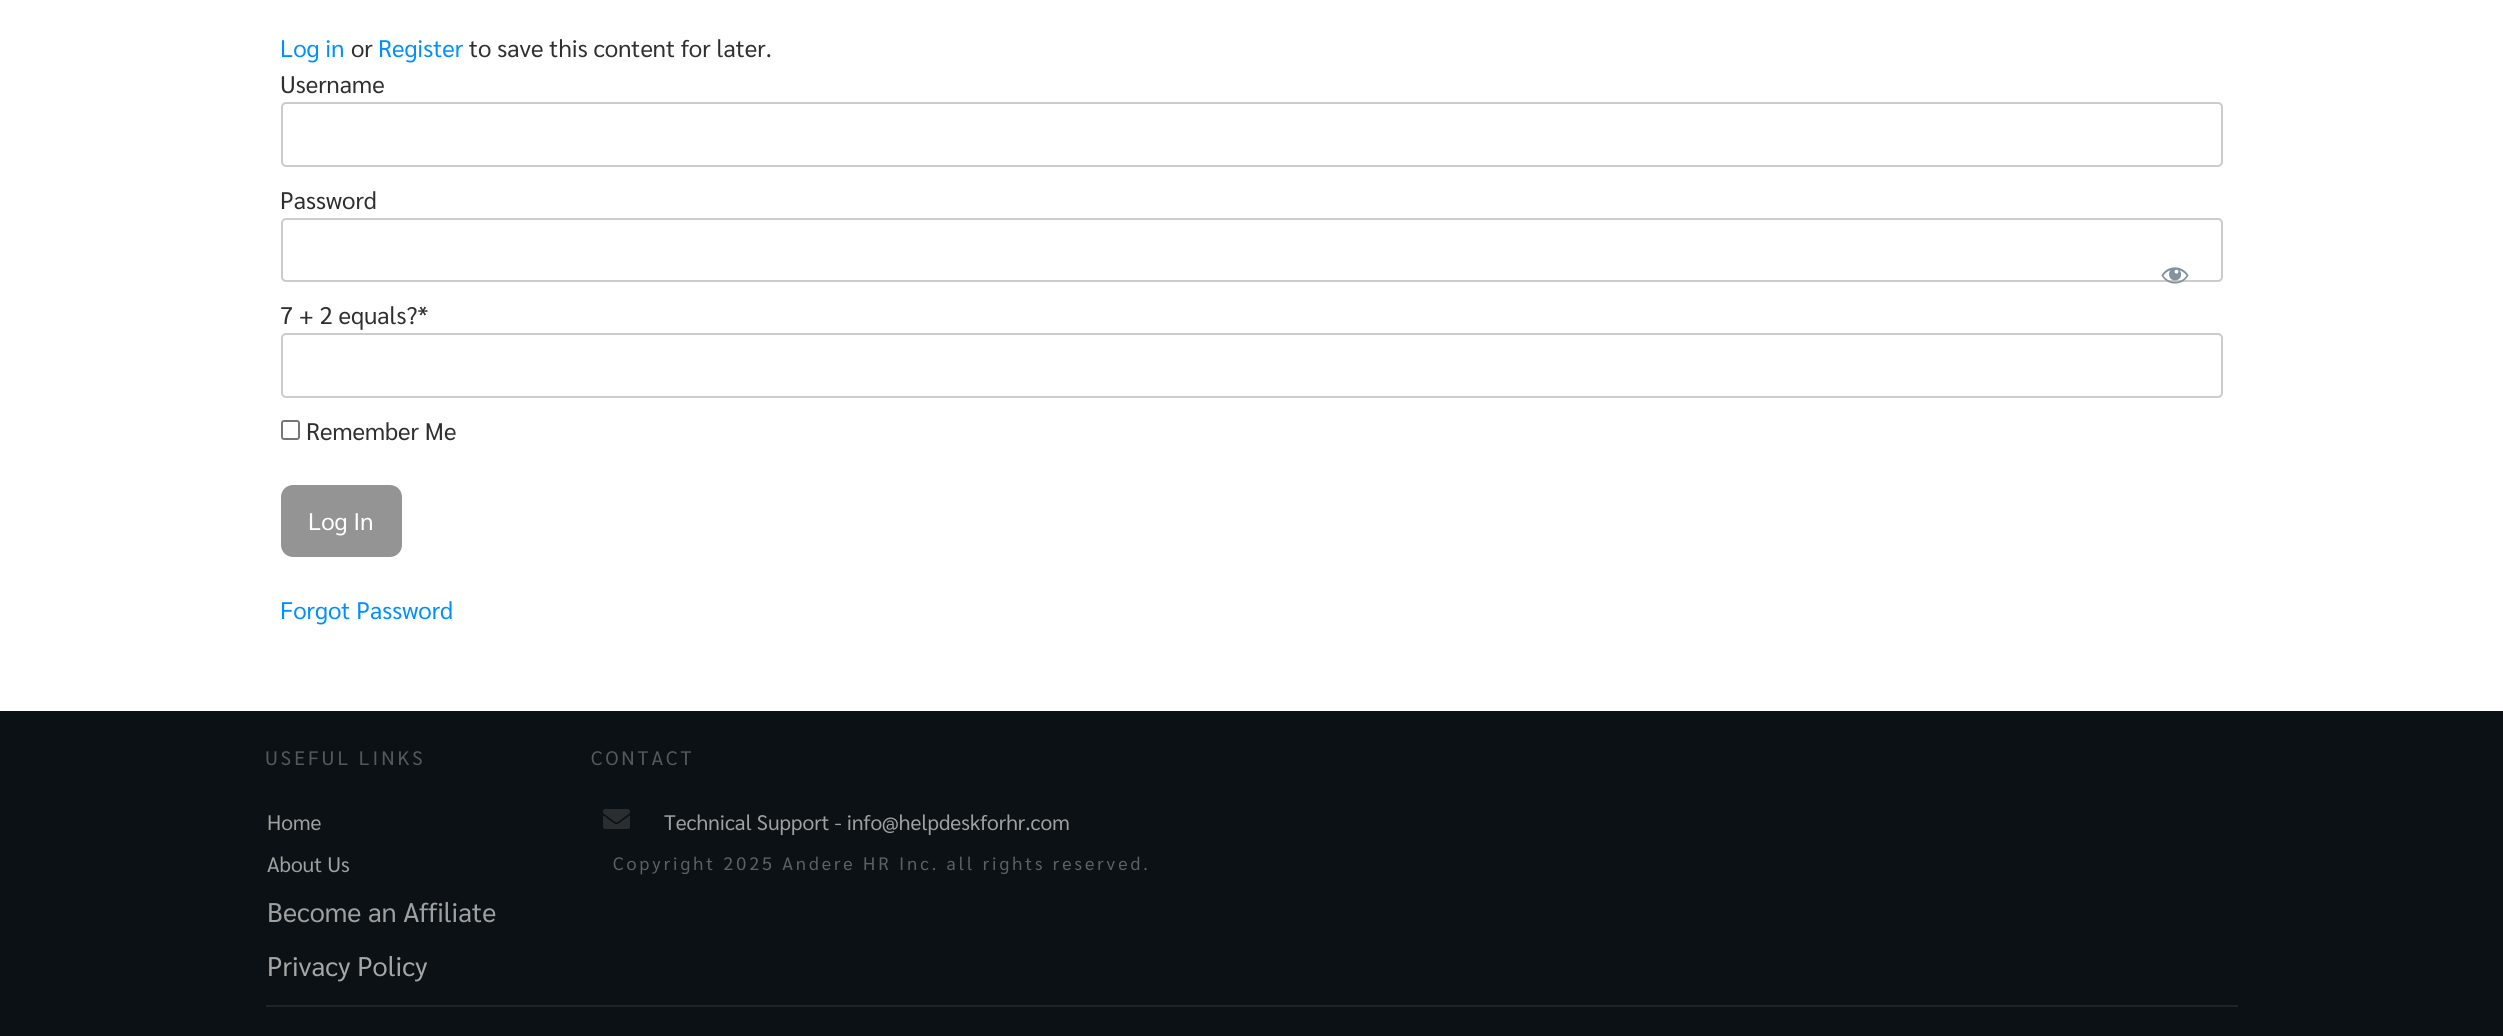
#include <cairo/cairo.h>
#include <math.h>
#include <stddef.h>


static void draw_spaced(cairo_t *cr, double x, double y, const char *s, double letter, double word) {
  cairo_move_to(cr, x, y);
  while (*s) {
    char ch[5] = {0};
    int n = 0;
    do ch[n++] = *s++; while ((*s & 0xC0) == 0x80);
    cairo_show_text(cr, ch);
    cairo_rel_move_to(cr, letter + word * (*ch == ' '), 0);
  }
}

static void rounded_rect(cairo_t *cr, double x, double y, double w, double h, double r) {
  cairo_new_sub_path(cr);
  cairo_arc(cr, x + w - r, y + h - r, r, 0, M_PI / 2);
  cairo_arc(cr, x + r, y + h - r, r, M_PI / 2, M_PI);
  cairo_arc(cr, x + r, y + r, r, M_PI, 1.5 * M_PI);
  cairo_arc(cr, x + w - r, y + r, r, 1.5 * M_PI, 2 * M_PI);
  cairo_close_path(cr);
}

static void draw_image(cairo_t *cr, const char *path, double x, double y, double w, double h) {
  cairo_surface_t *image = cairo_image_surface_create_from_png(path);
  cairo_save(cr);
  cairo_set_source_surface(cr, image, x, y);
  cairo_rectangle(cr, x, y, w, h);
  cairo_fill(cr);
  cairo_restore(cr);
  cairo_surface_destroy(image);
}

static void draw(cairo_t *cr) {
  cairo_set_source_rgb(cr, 1, 1, 1);
  cairo_paint(cr);
  rounded_rect(cr, 282, 103, 1940, 63, 4);
  cairo_set_source_rgb(cr, 204 / 255.0, 204 / 255.0, 204 / 255.0);
  cairo_stroke(cr);
  rounded_rect(cr, 282, 219, 1940, 62, 4);
  cairo_stroke(cr);
  draw_image(cr, "images/1.png", 2161, 267, 28, 17);
  rounded_rect(cr, 282, 334, 1940, 63, 4);
  cairo_stroke(cr);
  rounded_rect(cr, 282, 421, 17, 18, 2);
  cairo_set_source_rgb(cr, 118 / 255.0, 118 / 255.0, 118 / 255.0);
  cairo_stroke(cr);
  cairo_set_source_rgb(cr, 148 / 255.0, 148 / 255.0, 148 / 255.0);
  rounded_rect(cr, 282, 486, 119, 70, 11);
  cairo_fill_preserve(cr);
  cairo_stroke(cr);
  cairo_set_source_rgb(cr, 12 / 255.0, 17 / 255.0, 21 / 255.0);
  cairo_rectangle(cr, 0, 711, 2503, 325);
  cairo_fill(cr);
  cairo_set_source_rgb(cr, 31 / 255.0, 36 / 255.0, 40 / 255.0);
  cairo_rectangle(cr, 266, 1005, 1972, 2);
  cairo_fill(cr);
  draw_image(cr, "images/2.png", 603, 809, 27, 20);
  cairo_select_font_face(cr, "Sarabun", CAIRO_FONT_SLANT_NORMAL, CAIRO_FONT_WEIGHT_NORMAL);
  cairo_set_font_size(cr, 24);
  cairo_set_source_rgb(cr, 0, 143 / 255.0, 1);
  cairo_move_to(cr, 280, 57);
  cairo_show_text(cr, "Log in");
  cairo_set_source_rgb(cr, 47 / 255.0, 47 / 255.0, 47 / 255.0);
  cairo_move_to(cr, 351, 57);
  cairo_show_text(cr, "or");
  cairo_set_source_rgb(cr, 0, 143 / 255.0, 1);
  cairo_move_to(cr, 378, 57);
  cairo_show_text(cr, "Register");
  cairo_set_source_rgb(cr, 47 / 255.0, 47 / 255.0, 47 / 255.0);
  cairo_move_to(cr, 469, 57);
  cairo_show_text(cr, "to save this content for later.");
  cairo_move_to(cr, 280, 93);
  cairo_show_text(cr, "Username");
  cairo_move_to(cr, 280, 209);
  cairo_show_text(cr, "Password");
  cairo_move_to(cr, 280, 324);
  cairo_show_text(cr, "7 + 2 equals?*");
  cairo_move_to(cr, 306, 440);
  cairo_show_text(cr, "Remember Me");
  cairo_set_source_rgb(cr, 1, 1, 1);
  cairo_move_to(cr, 308, 530);
  cairo_show_text(cr, "Log In");
  cairo_set_source_rgb(cr, 0, 143 / 255.0, 1);
  cairo_move_to(cr, 280, 619);
  cairo_show_text(cr, "Forgot Password");
  cairo_set_font_size(cr, 19.5);
  cairo_set_source_rgb(cr, 85 / 255.0, 88 / 255.0, 91 / 255.0);
  draw_spaced(cr, 265, 765, "USEFUL LINKS", 3, 0);
  cairo_set_font_size(cr, 21);
  cairo_set_source_rgb(cr, 158 / 255.0, 160 / 255.0, 161 / 255.0);
  cairo_move_to(cr, 267, 830);
  cairo_show_text(cr, "Home");
  cairo_move_to(cr, 267, 872);
  cairo_show_text(cr, "About Us");
  cairo_set_font_size(cr, 27);
  cairo_move_to(cr, 267, 922);
  cairo_show_text(cr, "Become an Affiliate");
  cairo_set_source_rgb(cr, 166 / 255.0, 166 / 255.0, 166 / 255.0);
  cairo_move_to(cr, 267, 976);
  cairo_show_text(cr, "Privacy Policy");
  cairo_set_font_size(cr, 19.5);
  cairo_set_source_rgb(cr, 85 / 255.0, 88 / 255.0, 91 / 255.0);
  draw_spaced(cr, 591, 765, "CONTACT", 3, 0);
  cairo_set_font_size(cr, 21);
  cairo_set_source_rgb(cr, 158 / 255.0, 160 / 255.0, 161 / 255.0);
  cairo_move_to(cr, 664, 830);
  cairo_show_text(cr, "Technical Support - info@helpdeskforhr.com");
  cairo_set_font_size(cr, 18);
  cairo_set_source_rgb(cr, 92 / 255.0, 96 / 255.0, 98 / 255.0);
  draw_spaced(cr, 613, 870, "Copyright 2025 Andere HR Inc. all rights reserved.", 3, 0);
}

int main(void) {
  cairo_surface_t *surface = cairo_image_surface_create(CAIRO_FORMAT_RGB24, 2503, 1036);
  cairo_t *cr = cairo_create(surface);
  cairo_font_options_t *options = cairo_font_options_create();
  cairo_font_options_set_hint_metrics(options, CAIRO_HINT_METRICS_OFF);
  cairo_font_options_set_hint_style(options, CAIRO_HINT_STYLE_NONE);
  cairo_set_font_options(cr, options);
  cairo_set_miter_limit(cr, 4);
  draw(cr);
  cairo_surface_write_to_png(surface, "out.png");
  cairo_font_options_destroy(options);
  cairo_destroy(cr);
  cairo_surface_destroy(surface);
  return 0;
}
